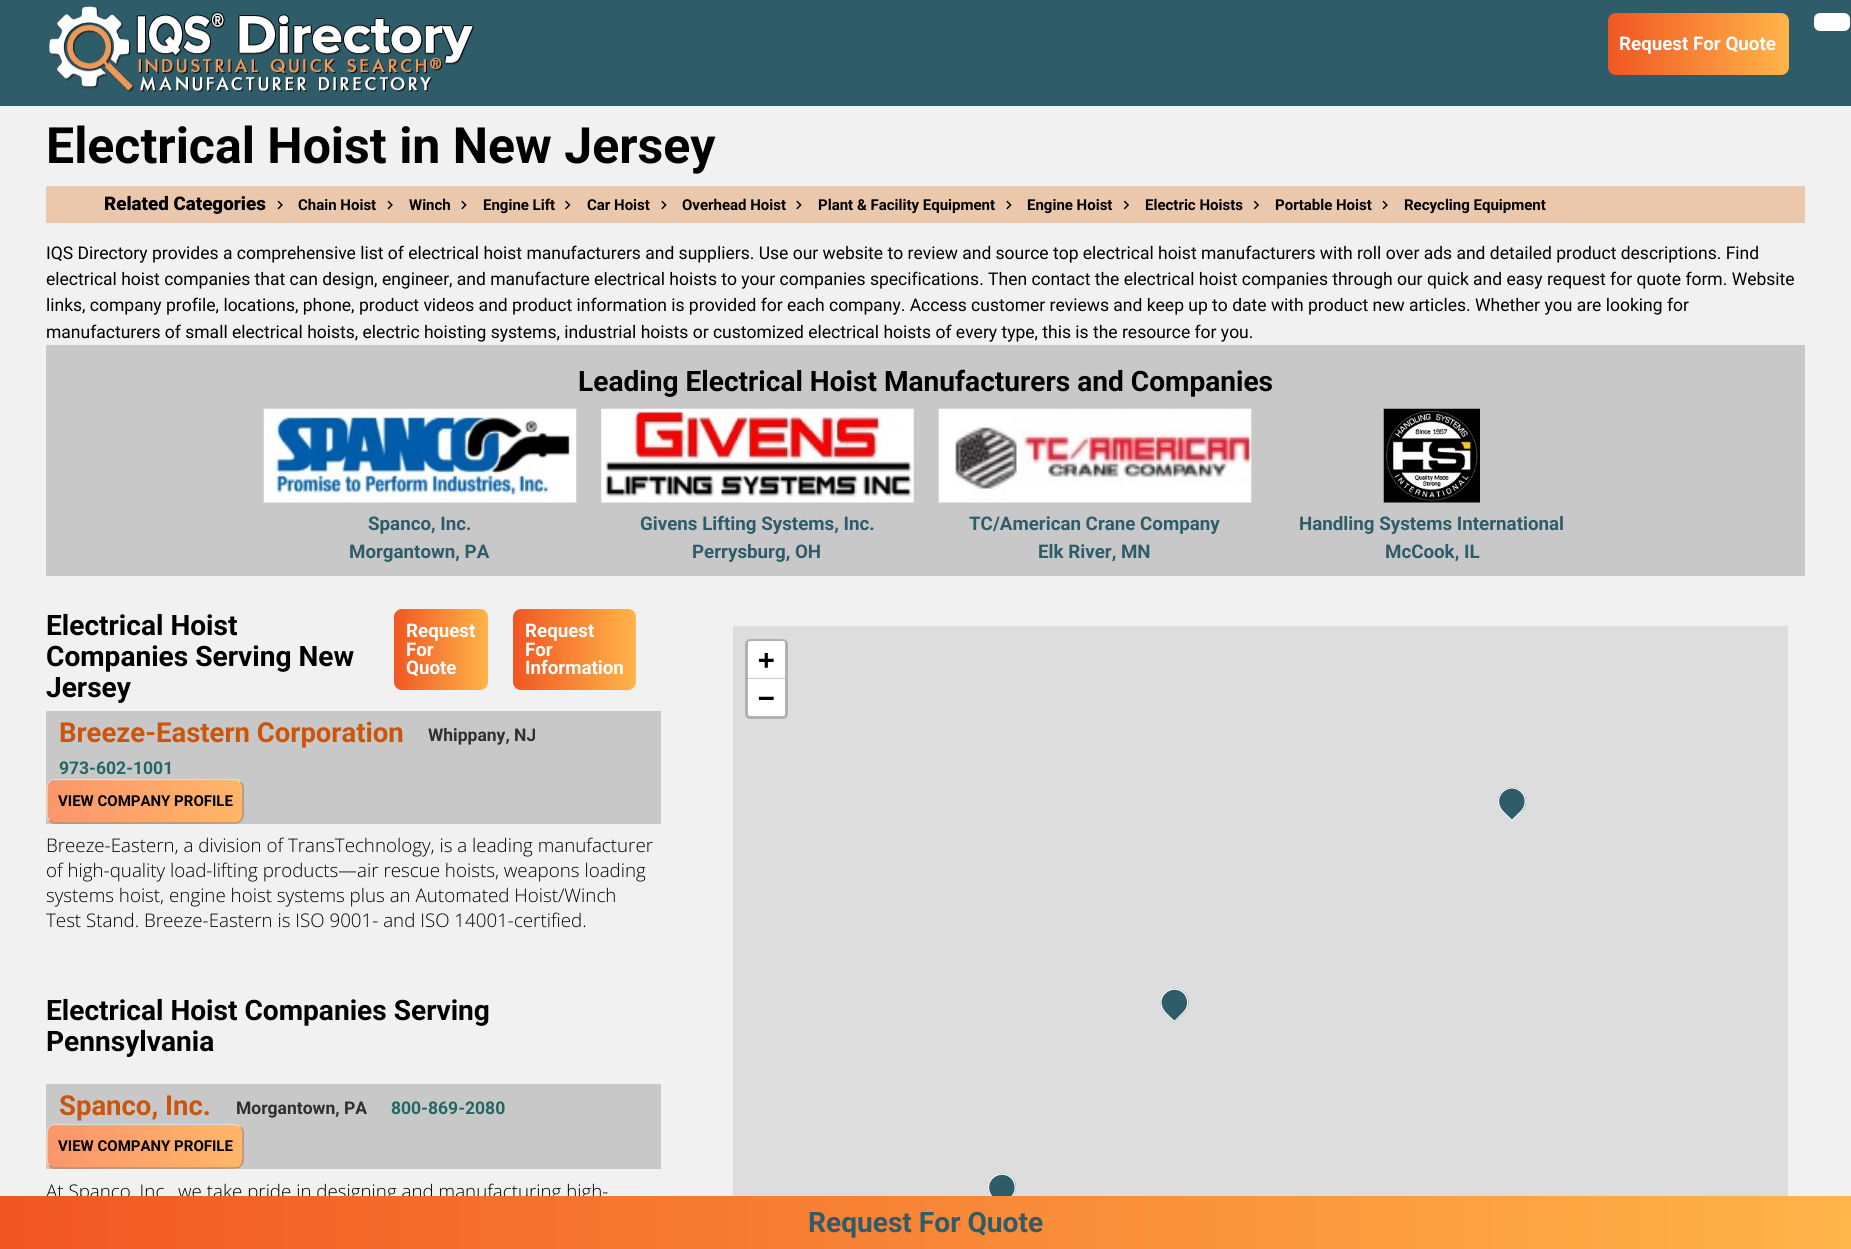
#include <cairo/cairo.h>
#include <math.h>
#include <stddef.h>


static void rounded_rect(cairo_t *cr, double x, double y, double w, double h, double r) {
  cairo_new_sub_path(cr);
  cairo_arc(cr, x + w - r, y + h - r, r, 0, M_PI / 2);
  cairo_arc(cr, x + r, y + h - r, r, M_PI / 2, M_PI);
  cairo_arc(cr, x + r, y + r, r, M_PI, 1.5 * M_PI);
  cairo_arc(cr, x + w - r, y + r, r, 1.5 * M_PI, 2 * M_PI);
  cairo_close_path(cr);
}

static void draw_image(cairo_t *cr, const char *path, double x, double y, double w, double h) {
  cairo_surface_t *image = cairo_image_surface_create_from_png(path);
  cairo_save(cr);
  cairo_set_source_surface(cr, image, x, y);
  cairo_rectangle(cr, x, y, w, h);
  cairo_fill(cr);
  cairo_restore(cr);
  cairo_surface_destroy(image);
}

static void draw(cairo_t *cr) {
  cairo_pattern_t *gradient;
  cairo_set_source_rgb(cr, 241 / 255.0, 241 / 255.0, 241 / 255.0);
  cairo_paint(cr);
  cairo_set_source_rgb(cr, 46 / 255.0, 92 / 255.0, 105 / 255.0);
  cairo_rectangle(cr, 0, 0, 1851, 106);
  cairo_fill(cr);
  draw_image(cr, "images/1.png", 49, 6, 425, 87);
  cairo_set_source_rgb(cr, 1, 1, 1);
  rounded_rect(cr, 1814, 13, 36, 18, 6);
  cairo_fill(cr);
  gradient = cairo_pattern_create_linear(1608, 44, 1789, 44);
  cairo_pattern_add_color_stop_rgba(gradient, 0, 241 / 255.0, 86 / 255.0, 35 / 255.0, 1);
  cairo_pattern_add_color_stop_rgba(gradient, 1, 1, 181 / 255.0, 73 / 255.0, 1);
  cairo_set_source(cr, gradient);
  cairo_pattern_destroy(gradient);
  rounded_rect(cr, 1608, 13, 181, 62, 8);
  cairo_fill(cr);
  cairo_set_source_rgb(cr, 235 / 255.0, 199 / 255.0, 171 / 255.0);
  cairo_rectangle(cr, 46, 186, 1759, 37);
  cairo_fill(cr);
  draw_image(cr, "images/2.png", 277, 200, 6, 10);
  draw_image(cr, "images/2.png", 387, 200, 6, 10);
  draw_image(cr, "images/3.png", 461, 200, 6, 10);
  draw_image(cr, "images/4.png", 565, 200, 6, 10);
  draw_image(cr, "images/3.png", 661, 200, 6, 10);
  draw_image(cr, "images/3.png", 796, 200, 6, 10);
  draw_image(cr, "images/3.png", 1006, 200, 6, 10);
  draw_image(cr, "images/5.png", 1123, 200, 6, 10);
  draw_image(cr, "images/5.png", 1253, 200, 6, 10);
  draw_image(cr, "images/2.png", 1382, 200, 6, 10);
  cairo_set_source_rgb(cr, 200 / 255.0, 200 / 255.0, 200 / 255.0);
  cairo_rectangle(cr, 46, 345, 1759, 231);
  cairo_fill(cr);
  draw_image(cr, "images/6.png", 263, 408, 314, 95);
  draw_image(cr, "images/7.png", 601, 408, 313, 95);
  draw_image(cr, "images/8.png", 938, 408, 314, 95);
  draw_image(cr, "images/9.png", 1383, 408, 97, 95);
  gradient = cairo_pattern_create_linear(394, 649, 488, 649);
  cairo_pattern_add_color_stop_rgba(gradient, 0, 241 / 255.0, 86 / 255.0, 35 / 255.0, 1);
  cairo_pattern_add_color_stop_rgba(gradient, 1, 1, 181 / 255.0, 73 / 255.0, 1);
  cairo_set_source(cr, gradient);
  cairo_pattern_destroy(gradient);
  rounded_rect(cr, 394, 609, 94, 81, 8);
  cairo_fill(cr);
  gradient = cairo_pattern_create_linear(513, 649, 636, 649);
  cairo_pattern_add_color_stop_rgba(gradient, 0, 241 / 255.0, 86 / 255.0, 35 / 255.0, 1);
  cairo_pattern_add_color_stop_rgba(gradient, 1, 1, 181 / 255.0, 73 / 255.0, 1);
  cairo_set_source(cr, gradient);
  cairo_pattern_destroy(gradient);
  rounded_rect(cr, 513, 609, 123, 81, 8);
  cairo_fill(cr);
  cairo_set_source_rgb(cr, 200 / 255.0, 200 / 255.0, 200 / 255.0);
  cairo_rectangle(cr, 46, 711, 615, 113);
  cairo_fill(cr);
  cairo_save(cr);
  rounded_rect(cr, 46, 779, 198, 45, 9);
  cairo_clip(cr);
  gradient = cairo_pattern_create_linear(-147, 801, 48, 801);
  cairo_pattern_add_color_stop_rgba(gradient, 0, 251 / 255.0, 150 / 255.0, 106 / 255.0, 1);
  cairo_pattern_add_color_stop_rgba(gradient, 1, 1, 182 / 255.0, 105 / 255.0, 1);
  cairo_set_source(cr, gradient);
  cairo_pattern_destroy(gradient);
  cairo_rectangle(cr, 46, 779, 2, 45);
  cairo_fill(cr);
  gradient = cairo_pattern_create_linear(48, 801, 243, 801);
  cairo_pattern_add_color_stop_rgba(gradient, 0, 251 / 255.0, 150 / 255.0, 106 / 255.0, 1);
  cairo_pattern_add_color_stop_rgba(gradient, 1, 1, 182 / 255.0, 105 / 255.0, 1);
  cairo_set_source(cr, gradient);
  cairo_pattern_destroy(gradient);
  cairo_rectangle(cr, 48, 779, 195, 45);
  cairo_fill(cr);
  gradient = cairo_pattern_create_linear(243, 801, 438, 801);
  cairo_pattern_add_color_stop_rgba(gradient, 0, 251 / 255.0, 150 / 255.0, 106 / 255.0, 1);
  cairo_pattern_add_color_stop_rgba(gradient, 1, 1, 182 / 255.0, 105 / 255.0, 1);
  cairo_set_source(cr, gradient);
  cairo_pattern_destroy(gradient);
  cairo_rectangle(cr, 243, 779, 1, 45);
  cairo_fill(cr);
  cairo_restore(cr);
  cairo_new_path(cr);
  cairo_move_to(cr, 240.5, 782);
  cairo_curve_to(cr, 244.5, 785.5, 243, 792, 243, 796.5);
  cairo_line_to(cr, 243, 810.5);
  cairo_curve_to(cr, 243, 816.5, 242.5, 823, 235, 823);
  cairo_line_to(cr, 53.5, 823);
  cairo_line_to(cr, 49.5, 820.5);
  cairo_set_source_rgb(cr, 147 / 255.0, 147 / 255.0, 147 / 255.0);
  cairo_set_line_width(cr, 1.2);
  cairo_stroke(cr);
  cairo_save(cr);
  cairo_rectangle(cr, 46, 779, 198, 45);
  cairo_clip(cr);
  cairo_new_path(cr);
  cairo_move_to(cr, 49.5, 820.5);
  cairo_curve_to(cr, 45.5, 817, 47, 810.5, 47, 806);
  cairo_line_to(cr, 47, 792);
  cairo_curve_to(cr, 47, 786, 47.5, 779.5, 55, 779.5);
  cairo_line_to(cr, 236.5, 779.5);
  cairo_line_to(cr, 240.5, 782);
  cairo_set_source_rgb(cr, 221 / 255.0, 221 / 255.0, 221 / 255.0);
  cairo_stroke(cr);
  cairo_restore(cr);
  cairo_set_source_rgb(cr, 200 / 255.0, 200 / 255.0, 200 / 255.0);
  cairo_rectangle(cr, 46, 1084, 615, 85);
  cairo_fill(cr);
  cairo_save(cr);
  rounded_rect(cr, 46, 1124, 198, 45, 9);
  cairo_clip(cr);
  gradient = cairo_pattern_create_linear(-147, 1146, 48, 1146);
  cairo_pattern_add_color_stop_rgba(gradient, 0, 251 / 255.0, 150 / 255.0, 106 / 255.0, 1);
  cairo_pattern_add_color_stop_rgba(gradient, 1, 1, 182 / 255.0, 105 / 255.0, 1);
  cairo_set_source(cr, gradient);
  cairo_pattern_destroy(gradient);
  cairo_rectangle(cr, 46, 1124, 2, 45);
  cairo_fill(cr);
  gradient = cairo_pattern_create_linear(48, 1146, 243, 1146);
  cairo_pattern_add_color_stop_rgba(gradient, 0, 251 / 255.0, 150 / 255.0, 106 / 255.0, 1);
  cairo_pattern_add_color_stop_rgba(gradient, 1, 1, 182 / 255.0, 105 / 255.0, 1);
  cairo_set_source(cr, gradient);
  cairo_pattern_destroy(gradient);
  cairo_rectangle(cr, 48, 1124, 195, 45);
  cairo_fill(cr);
  gradient = cairo_pattern_create_linear(243, 1146, 438, 1146);
  cairo_pattern_add_color_stop_rgba(gradient, 0, 251 / 255.0, 150 / 255.0, 106 / 255.0, 1);
  cairo_pattern_add_color_stop_rgba(gradient, 1, 1, 182 / 255.0, 105 / 255.0, 1);
  cairo_set_source(cr, gradient);
  cairo_pattern_destroy(gradient);
  cairo_rectangle(cr, 243, 1124, 1, 45);
  cairo_fill(cr);
  cairo_restore(cr);
  cairo_new_path(cr);
  cairo_move_to(cr, 240.5, 1127);
  cairo_curve_to(cr, 244.5, 1130.5, 243, 1137, 243, 1141.5);
  cairo_line_to(cr, 243, 1155.5);
  cairo_curve_to(cr, 243, 1161.5, 242.5, 1168, 235, 1168);
  cairo_line_to(cr, 53.5, 1168);
  cairo_line_to(cr, 49.5, 1165.5);
  cairo_set_source_rgb(cr, 147 / 255.0, 147 / 255.0, 147 / 255.0);
  cairo_stroke(cr);
  cairo_save(cr);
  cairo_rectangle(cr, 46, 1124, 198, 45);
  cairo_clip(cr);
  cairo_new_path(cr);
  cairo_move_to(cr, 49.5, 1165.5);
  cairo_curve_to(cr, 45.5, 1162, 47, 1155.5, 47, 1151);
  cairo_line_to(cr, 47, 1137);
  cairo_curve_to(cr, 47, 1131, 47.5, 1124.5, 55, 1124.5);
  cairo_line_to(cr, 236.5, 1124.5);
  cairo_line_to(cr, 240.5, 1127);
  cairo_set_source_rgb(cr, 221 / 255.0, 221 / 255.0, 221 / 255.0);
  cairo_stroke(cr);
  cairo_restore(cr);
  cairo_set_source_rgb(cr, 221 / 255.0, 221 / 255.0, 221 / 255.0);
  cairo_rectangle(cr, 733, 626, 1055, 570);
  cairo_fill(cr);
  rounded_rect(cr, 746.5, 640.5, 40, 77, 3.5);
  cairo_set_source_rgb(cr, 177 / 255.0, 177 / 255.0, 177 / 255.0);
  cairo_set_line_width(cr, 3);
  cairo_stroke(cr);
  cairo_set_source_rgb(cr, 1, 1, 1);
  cairo_new_path(cr);
  cairo_move_to(cr, 750.5, 641);
  cairo_line_to(cr, 782.5, 641);
  cairo_curve_to(cr, 784, 641, 785, 642, 785, 643.5);
  cairo_line_to(cr, 785, 679);
  cairo_line_to(cr, 748, 679);
  cairo_line_to(cr, 748, 643.5);
  cairo_curve_to(cr, 748, 642, 749, 641, 750.5, 641);
  cairo_close_path(cr);
  cairo_fill(cr);
  cairo_set_source_rgb(cr, 204 / 255.0, 204 / 255.0, 204 / 255.0);
  cairo_rectangle(cr, 748, 678, 37, 1);
  cairo_fill(cr);
  cairo_set_source_rgb(cr, 1, 1, 1);
  cairo_new_path(cr);
  cairo_move_to(cr, 748, 679);
  cairo_line_to(cr, 785, 679);
  cairo_line_to(cr, 785, 713.5);
  cairo_curve_to(cr, 785, 715, 784, 716, 782.5, 716);
  cairo_line_to(cr, 750.5, 716);
  cairo_curve_to(cr, 749, 716, 748, 715, 748, 713.5);
  cairo_close_path(cr);
  cairo_fill(cr);
  cairo_set_source_rgb(cr, 46 / 255.0, 92 / 255.0, 105 / 255.0);
  cairo_new_path(cr);
  cairo_move_to(cr, 1522, 791.5);
  cairo_curve_to(cr, 1527.5, 797, 1527.5, 806, 1522, 811.5);
  cairo_line_to(cr, 1512, 821);
  cairo_curve_to(cr, 1508, 817.5, 1500.5, 811.5, 1499, 806.5);
  cairo_curve_to(cr, 1493, 792.5, 1511, 780.5, 1522, 791.5);
  cairo_close_path(cr);
  cairo_fill(cr);
  cairo_new_path(cr);
  cairo_move_to(cr, 1521.5, 792);
  cairo_curve_to(cr, 1526.5, 797, 1526.5, 805.5, 1521.5, 811);
  cairo_line_to(cr, 1512, 820.5);
  cairo_curve_to(cr, 1508, 816.5, 1501, 811, 1499.5, 806.5);
  cairo_curve_to(cr, 1494, 793, 1511, 781.5, 1521.5, 792);
  cairo_close_path(cr);
  cairo_set_source_rgb(cr, 1, 1, 1);
  cairo_set_line_width(cr, 1.3);
  cairo_stroke(cr);
  cairo_set_source_rgb(cr, 46 / 255.0, 92 / 255.0, 105 / 255.0);
  cairo_new_path(cr);
  cairo_move_to(cr, 1184.5, 992.5);
  cairo_curve_to(cr, 1190, 998, 1190, 1007, 1184.5, 1012.5);
  cairo_line_to(cr, 1174.5, 1022.5);
  cairo_curve_to(cr, 1170.5, 1018.5, 1163, 1012.5, 1161.5, 1008);
  cairo_curve_to(cr, 1155.5, 994, 1173.5, 982, 1184.5, 992.5);
  cairo_close_path(cr);
  cairo_fill(cr);
  cairo_new_path(cr);
  cairo_move_to(cr, 1184, 993);
  cairo_curve_to(cr, 1189, 998.5, 1189, 1007, 1184, 1012);
  cairo_line_to(cr, 1174.5, 1021.5);
  cairo_curve_to(cr, 1170.5, 1018, 1163.5, 1012, 1162, 1007.5);
  cairo_curve_to(cr, 1156.5, 994, 1173.5, 983, 1184, 993);
  cairo_close_path(cr);
  cairo_set_source_rgb(cr, 1, 1, 1);
  cairo_stroke(cr);
  cairo_set_source_rgb(cr, 46 / 255.0, 92 / 255.0, 105 / 255.0);
  cairo_new_path(cr);
  cairo_move_to(cr, 1012, 1177.5);
  cairo_curve_to(cr, 1017.5, 1183, 1017.5, 1192, 1012, 1197.5);
  cairo_line_to(cr, 1002, 1207.5);
  cairo_curve_to(cr, 998, 1203.5, 990.5, 1197.5, 989, 1193);
  cairo_curve_to(cr, 983, 1179, 1001, 1167, 1012, 1177.5);
  cairo_close_path(cr);
  cairo_fill(cr);
  cairo_new_path(cr);
  cairo_move_to(cr, 1011.5, 1178);
  cairo_curve_to(cr, 1016.5, 1183.5, 1016.5, 1192, 1011.5, 1197);
  cairo_line_to(cr, 1002, 1206.5);
  cairo_curve_to(cr, 998, 1203, 991, 1197, 989.5, 1192.5);
  cairo_curve_to(cr, 984, 1179, 1001, 1168, 1011.5, 1178);
  cairo_close_path(cr);
  cairo_set_source_rgb(cr, 1, 1, 1);
  cairo_stroke(cr);
  cairo_select_font_face(cr, "Roboto", CAIRO_FONT_SLANT_NORMAL, CAIRO_FONT_WEIGHT_BOLD);
  cairo_set_font_size(cr, 18.75);
  cairo_move_to(cr, 1619, 50);
  cairo_show_text(cr, "Request For Quote");
  cairo_set_font_size(cr, 50);
  cairo_set_source_rgb(cr, 0, 0, 0);
  cairo_move_to(cr, 46, 163);
  cairo_show_text(cr, "Electrical Hoist in New Jersey");
  cairo_select_font_face(cr, "Roboto Black", CAIRO_FONT_SLANT_NORMAL, CAIRO_FONT_WEIGHT_NORMAL);
  cairo_set_font_size(cr, 18.75);
  cairo_move_to(cr, 104, 210);
  cairo_show_text(cr, "Related Categories");
  cairo_select_font_face(cr, "Roboto", CAIRO_FONT_SLANT_NORMAL, CAIRO_FONT_WEIGHT_BOLD);
  cairo_set_font_size(cr, 15);
  cairo_move_to(cr, 298, 210);
  cairo_show_text(cr, "Chain Hoist");
  cairo_move_to(cr, 409, 210);
  cairo_show_text(cr, "Winch");
  cairo_move_to(cr, 483, 210);
  cairo_show_text(cr, "Engine Lift");
  cairo_move_to(cr, 587, 210);
  cairo_show_text(cr, "Car Hoist");
  cairo_move_to(cr, 682, 210);
  cairo_show_text(cr, "Overhead Hoist");
  cairo_move_to(cr, 818, 210);
  cairo_show_text(cr, "Plant & Facility Equipment");
  cairo_move_to(cr, 1027, 210);
  cairo_show_text(cr, "Engine Hoist");
  cairo_move_to(cr, 1145, 210);
  cairo_show_text(cr, "Electric Hoists");
  cairo_move_to(cr, 1275, 210);
  cairo_show_text(cr, "Portable Hoist");
  cairo_move_to(cr, 1404, 210);
  cairo_show_text(cr, "Recycling Equipment");
  cairo_select_font_face(cr, "Roboto", CAIRO_FONT_SLANT_NORMAL, CAIRO_FONT_WEIGHT_NORMAL);
  cairo_set_font_size(cr, 17.5);
  cairo_move_to(cr, 46, 259);
  cairo_show_text(cr, "IQS Directory provides a comprehensive list of electrical hoist manufacturers and suppliers. Use our website to review and source top electrical hoist manufacturers with roll over ads and detailed product descriptions. Find");
  cairo_move_to(cr, 46, 285);
  cairo_show_text(cr, "electrical hoist companies that can design, engineer, and manufacture electrical hoists to your companies specifications. Then contact the electrical hoist companies through our quick and easy request for quote form. Website");
  cairo_move_to(cr, 46, 311);
  cairo_show_text(cr, "links, company profile, locations, phone, product videos and product information is provided for each company. Access customer reviews and keep up to date with product new articles. Whether you are looking for");
  cairo_move_to(cr, 46, 338);
  cairo_show_text(cr, "manufacturers of small electrical hoists, electric hoisting systems, industrial hoists or customized electrical hoists of every type, this is the resource for you.");
  cairo_select_font_face(cr, "Roboto", CAIRO_FONT_SLANT_NORMAL, CAIRO_FONT_WEIGHT_BOLD);
  cairo_set_font_size(cr, 28.1);
  cairo_move_to(cr, 578, 391);
  cairo_show_text(cr, "Leading Electrical Hoist Manufacturers and Companies");
  cairo_set_font_size(cr, 18.75);
  cairo_set_source_rgb(cr, 46 / 255.0, 92 / 255.0, 105 / 255.0);
  cairo_move_to(cr, 368, 530);
  cairo_show_text(cr, "Spanco, Inc.");
  cairo_move_to(cr, 349, 558);
  cairo_show_text(cr, "Morgantown, PA");
  cairo_move_to(cr, 640, 530);
  cairo_show_text(cr, "Givens Lifting Systems, Inc.");
  cairo_move_to(cr, 692, 558);
  cairo_show_text(cr, "Perrysburg, OH");
  cairo_move_to(cr, 969, 530);
  cairo_show_text(cr, "TC/American Crane Company");
  cairo_move_to(cr, 1038, 558);
  cairo_show_text(cr, "Elk River, MN");
  cairo_move_to(cr, 1299, 530);
  cairo_show_text(cr, "Handling Systems International");
  cairo_move_to(cr, 1385, 558);
  cairo_show_text(cr, "McCook, IL");
  cairo_set_font_size(cr, 28.1);
  cairo_set_source_rgb(cr, 0, 0, 0);
  cairo_move_to(cr, 46, 635);
  cairo_show_text(cr, "Electrical Hoist");
  cairo_move_to(cr, 46, 666);
  cairo_show_text(cr, "Companies Serving New");
  cairo_move_to(cr, 46, 697);
  cairo_show_text(cr, "Jersey");
  cairo_set_font_size(cr, 18.75);
  cairo_set_source_rgb(cr, 1, 1, 1);
  cairo_move_to(cr, 406, 637);
  cairo_show_text(cr, "Request");
  cairo_move_to(cr, 406, 656);
  cairo_show_text(cr, "For");
  cairo_move_to(cr, 406, 674);
  cairo_show_text(cr, "Quote");
  cairo_move_to(cr, 525, 637);
  cairo_show_text(cr, "Request");
  cairo_move_to(cr, 525, 656);
  cairo_show_text(cr, "For");
  cairo_move_to(cr, 525, 674);
  cairo_show_text(cr, "Information");
  cairo_set_font_size(cr, 27.5);
  cairo_set_source_rgb(cr, 202 / 255.0, 85 / 255.0, 13 / 255.0);
  cairo_move_to(cr, 59, 742);
  cairo_show_text(cr, "Breeze-Eastern Corporation");
  cairo_set_font_size(cr, 17.5);
  cairo_set_source_rgb(cr, 47 / 255.0, 47 / 255.0, 47 / 255.0);
  cairo_move_to(cr, 428, 741);
  cairo_show_text(cr, "Whippany, NJ");
  cairo_set_source_rgb(cr, 34 / 255.0, 103 / 255.0, 100 / 255.0);
  cairo_move_to(cr, 59, 774);
  cairo_show_text(cr, "973-602-1001");
  cairo_set_font_size(cr, 15);
  cairo_set_source_rgb(cr, 0, 0, 0);
  cairo_move_to(cr, 58, 806);
  cairo_show_text(cr, "VIEW COMPANY PROFILE");
  cairo_select_font_face(cr, "Open Sans Light", CAIRO_FONT_SLANT_NORMAL, CAIRO_FONT_WEIGHT_NORMAL);
  cairo_set_font_size(cr, 18.75);
  cairo_move_to(cr, 46, 852);
  cairo_show_text(cr, "Breeze-Eastern, a division of TransTechnology, is a leading manufacturer");
  cairo_move_to(cr, 46, 877);
  cairo_show_text(cr, "of high-quality load-lifting products—air rescue hoists, weapons loading");
  cairo_move_to(cr, 46, 902);
  cairo_show_text(cr, "systems hoist, engine hoist systems plus an Automated Hoist/Winch");
  cairo_move_to(cr, 46, 927);
  cairo_show_text(cr, "Test Stand. Breeze-Eastern is ISO 9001- and ISO 14001-certified.");
  cairo_select_font_face(cr, "Roboto", CAIRO_FONT_SLANT_NORMAL, CAIRO_FONT_WEIGHT_BOLD);
  cairo_set_font_size(cr, 28.1);
  cairo_move_to(cr, 46, 1020);
  cairo_show_text(cr, "Electrical Hoist Companies Serving");
  cairo_move_to(cr, 46, 1051);
  cairo_show_text(cr, "Pennsylvania");
  cairo_set_font_size(cr, 27.5);
  cairo_set_source_rgb(cr, 202 / 255.0, 85 / 255.0, 13 / 255.0);
  cairo_move_to(cr, 59, 1115);
  cairo_show_text(cr, "Spanco, Inc.");
  cairo_set_font_size(cr, 17.5);
  cairo_set_source_rgb(cr, 47 / 255.0, 47 / 255.0, 47 / 255.0);
  cairo_move_to(cr, 236, 1114);
  cairo_show_text(cr, "Morgantown, PA");
  cairo_set_source_rgb(cr, 34 / 255.0, 103 / 255.0, 100 / 255.0);
  cairo_move_to(cr, 391, 1114);
  cairo_show_text(cr, "800-869-2080");
  cairo_set_font_size(cr, 15);
  cairo_set_source_rgb(cr, 0, 0, 0);
  cairo_move_to(cr, 58, 1151);
  cairo_show_text(cr, "VIEW COMPANY PROFILE");
  cairo_select_font_face(cr, "Open Sans Light", CAIRO_FONT_SLANT_NORMAL, CAIRO_FONT_WEIGHT_NORMAL);
  cairo_set_font_size(cr, 18.75);
  cairo_move_to(cr, 46, 1198);
  cairo_show_text(cr, "At Spanco, Inc");
  cairo_move_to(cr, 178, 1198);
  cairo_show_text(cr, "we take pride in designing and manufacturing high-");
  cairo_select_font_face(cr, "DejaVu Sans Mono", CAIRO_FONT_SLANT_NORMAL, CAIRO_FONT_WEIGHT_BOLD);
  cairo_set_font_size(cr, 27.5);
  cairo_move_to(cr, 758, 669);
  cairo_show_text(cr, "+");
  cairo_move_to(cr, 758, 707);
  cairo_show_text(cr, "−");
  gradient = cairo_pattern_create_linear(0, 1223, 1851, 1223);
  cairo_pattern_add_color_stop_rgba(gradient, 0, 241 / 255.0, 86 / 255.0, 35 / 255.0, 1);
  cairo_pattern_add_color_stop_rgba(gradient, 1, 1, 181 / 255.0, 73 / 255.0, 1);
  cairo_set_source(cr, gradient);
  cairo_pattern_destroy(gradient);
  cairo_rectangle(cr, 0, 1196, 1851, 53);
  cairo_fill(cr);
  cairo_select_font_face(cr, "Roboto", CAIRO_FONT_SLANT_NORMAL, CAIRO_FONT_WEIGHT_BOLD);
  cairo_set_font_size(cr, 28.1);
  cairo_set_source_rgb(cr, 46 / 255.0, 92 / 255.0, 105 / 255.0);
  cairo_move_to(cr, 808, 1232);
  cairo_show_text(cr, "Request For Quote");
}

int main(void) {
  cairo_surface_t *surface = cairo_image_surface_create(CAIRO_FORMAT_RGB24, 1851, 1249);
  cairo_t *cr = cairo_create(surface);
  cairo_font_options_t *options = cairo_font_options_create();
  cairo_font_options_set_hint_metrics(options, CAIRO_HINT_METRICS_OFF);
  cairo_font_options_set_hint_style(options, CAIRO_HINT_STYLE_NONE);
  cairo_set_font_options(cr, options);
  cairo_set_miter_limit(cr, 4);
  draw(cr);
  cairo_surface_write_to_png(surface, "out.png");
  cairo_font_options_destroy(options);
  cairo_destroy(cr);
  cairo_surface_destroy(surface);
  return 0;
}
